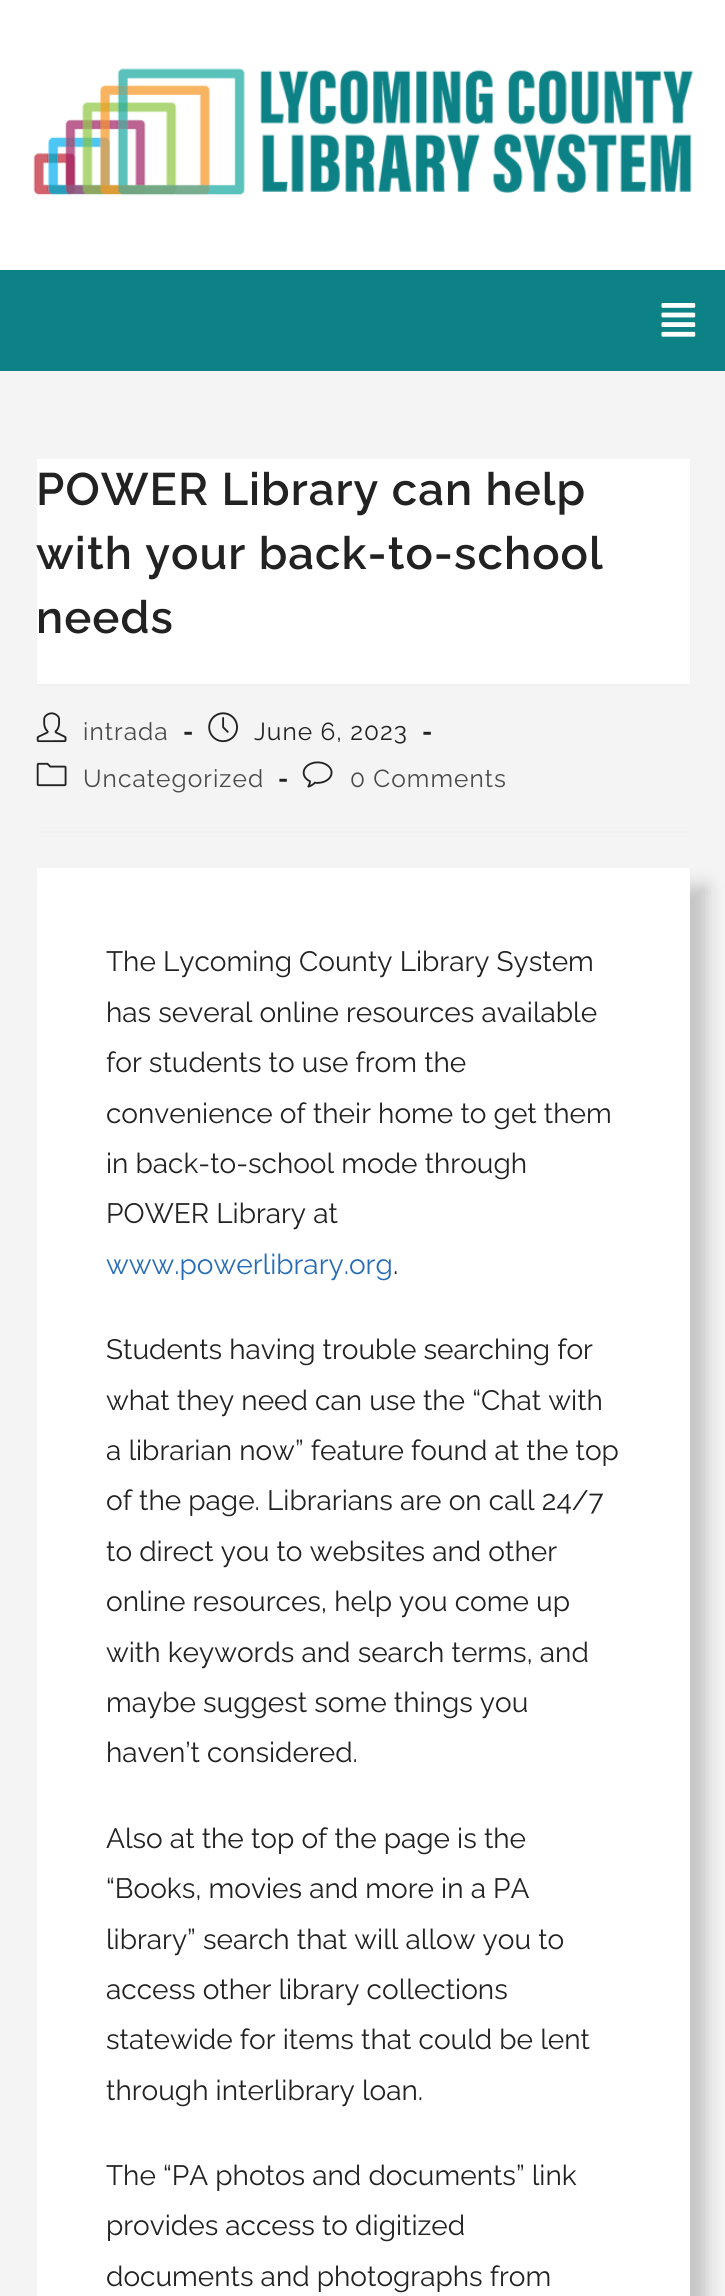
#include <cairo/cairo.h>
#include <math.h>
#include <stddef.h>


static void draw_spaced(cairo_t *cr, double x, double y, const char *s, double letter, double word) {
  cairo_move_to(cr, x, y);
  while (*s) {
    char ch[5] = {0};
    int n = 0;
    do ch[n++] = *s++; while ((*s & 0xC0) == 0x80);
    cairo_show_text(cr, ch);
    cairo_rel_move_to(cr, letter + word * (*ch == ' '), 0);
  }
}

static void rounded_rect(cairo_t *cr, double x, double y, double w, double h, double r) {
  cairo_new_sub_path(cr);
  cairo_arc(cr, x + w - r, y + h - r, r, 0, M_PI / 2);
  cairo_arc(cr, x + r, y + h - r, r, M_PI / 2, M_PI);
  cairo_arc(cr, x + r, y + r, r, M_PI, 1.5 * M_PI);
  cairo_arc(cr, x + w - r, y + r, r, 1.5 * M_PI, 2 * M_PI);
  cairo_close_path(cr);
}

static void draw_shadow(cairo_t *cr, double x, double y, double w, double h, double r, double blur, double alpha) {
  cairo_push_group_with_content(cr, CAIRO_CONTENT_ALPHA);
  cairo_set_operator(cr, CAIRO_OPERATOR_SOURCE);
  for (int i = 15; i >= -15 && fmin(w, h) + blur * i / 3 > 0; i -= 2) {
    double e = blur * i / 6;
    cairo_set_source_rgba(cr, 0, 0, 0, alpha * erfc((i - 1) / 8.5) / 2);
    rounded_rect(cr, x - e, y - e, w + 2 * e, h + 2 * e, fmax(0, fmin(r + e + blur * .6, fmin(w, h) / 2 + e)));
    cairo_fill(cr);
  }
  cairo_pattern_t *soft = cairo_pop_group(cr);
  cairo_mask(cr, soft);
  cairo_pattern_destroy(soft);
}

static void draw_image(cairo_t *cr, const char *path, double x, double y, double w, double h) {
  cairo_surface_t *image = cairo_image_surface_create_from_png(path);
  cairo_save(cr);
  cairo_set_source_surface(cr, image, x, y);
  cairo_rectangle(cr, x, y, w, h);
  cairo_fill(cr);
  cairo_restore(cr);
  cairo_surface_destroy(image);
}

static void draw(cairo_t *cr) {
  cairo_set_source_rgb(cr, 244 / 255.0, 244 / 255.0, 244 / 255.0);
  cairo_paint(cr);
  cairo_set_source_rgb(cr, 1, 1, 1);
  cairo_rectangle(cr, 0, 0, 725, 270);
  cairo_fill(cr);
  draw_image(cr, "images/1.png", 33, 68, 660, 128);
  cairo_set_source_rgb(cr, 13 / 255.0, 130 / 255.0, 134 / 255.0);
  cairo_rectangle(cr, 0, 270, 725, 101);
  cairo_fill(cr);
  draw_image(cr, "images/2.png", 661, 303, 35, 34);
  cairo_set_source_rgb(cr, 1, 1, 1);
  cairo_rectangle(cr, 37, 459, 653, 225);
  cairo_fill(cr);
  cairo_set_source_rgb(cr, 241 / 255.0, 241 / 255.0, 241 / 255.0);
  cairo_rectangle(cr, 37, 684, 653, 2);
  cairo_fill(cr);
  cairo_rectangle(cr, 37, 831, 653, 2);
  cairo_fill(cr);
  draw_image(cr, "images/3.png", 36, 712, 31, 31);
  draw_image(cr, "images/4.png", 208, 712, 30, 31);
  draw_image(cr, "images/5.png", 36, 762, 31, 25);
  draw_image(cr, "images/6.png", 302, 761, 31, 27);
  cairo_set_source_rgb(cr, 0, 0, 0);
  draw_shadow(cr, 54, 886, 653, 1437, 0, 9, 0.2);
  cairo_set_source_rgb(cr, 1, 1, 1);
  cairo_rectangle(cr, 37, 868, 653, 1428);
  cairo_fill(cr);
  cairo_select_font_face(cr, "Raleway SemiBold", CAIRO_FONT_SLANT_NORMAL, CAIRO_FONT_WEIGHT_NORMAL);
  cairo_set_font_size(cr, 45.5);
  cairo_set_source_rgb(cr, 34 / 255.0, 34 / 255.0, 34 / 255.0);
  draw_spaced(cr, 36, 505, "POWER Library can help", 1.05, 0);
  draw_spaced(cr, 36, 569, "with your back-to-school", 1.05, 0);
  draw_spaced(cr, 36, 633, "needs", 1.05, 0);
  cairo_select_font_face(cr, "Raleway", CAIRO_FONT_SLANT_NORMAL, CAIRO_FONT_WEIGHT_NORMAL);
  cairo_set_font_size(cr, 24.5);
  cairo_set_source_rgb(cr, 74 / 255.0, 74 / 255.0, 74 / 255.0);
  draw_spaced(cr, 83, 740, "intrada", 1.05, 0);
  cairo_select_font_face(cr, "Raleway", CAIRO_FONT_SLANT_NORMAL, CAIRO_FONT_WEIGHT_BOLD);
  cairo_set_source_rgb(cr, 34 / 255.0, 34 / 255.0, 34 / 255.0);
  draw_spaced(cr, 183, 740, "-", 1.05, 0);
  cairo_select_font_face(cr, "Raleway", CAIRO_FONT_SLANT_NORMAL, CAIRO_FONT_WEIGHT_NORMAL);
  draw_spaced(cr, 254, 740, "June 6, 2023", 1.05, 0);
  cairo_select_font_face(cr, "Raleway", CAIRO_FONT_SLANT_NORMAL, CAIRO_FONT_WEIGHT_BOLD);
  draw_spaced(cr, 422, 740, "-", 1.05, 0);
  cairo_select_font_face(cr, "Raleway", CAIRO_FONT_SLANT_NORMAL, CAIRO_FONT_WEIGHT_NORMAL);
  cairo_set_source_rgb(cr, 74 / 255.0, 74 / 255.0, 74 / 255.0);
  draw_spaced(cr, 83, 787, "Uncategorized", 1.05, 0);
  cairo_select_font_face(cr, "Raleway", CAIRO_FONT_SLANT_NORMAL, CAIRO_FONT_WEIGHT_BOLD);
  cairo_set_source_rgb(cr, 34 / 255.0, 34 / 255.0, 34 / 255.0);
  draw_spaced(cr, 278, 787, "-", 1.05, 0);
  cairo_select_font_face(cr, "Raleway", CAIRO_FONT_SLANT_NORMAL, CAIRO_FONT_WEIGHT_NORMAL);
  cairo_set_source_rgb(cr, 74 / 255.0, 74 / 255.0, 74 / 255.0);
  draw_spaced(cr, 350, 787, "0 Comments", 1.05, 0);
  cairo_set_font_size(cr, 28);
  cairo_set_source_rgb(cr, 34 / 255.0, 34 / 255.0, 34 / 255.0);
  cairo_move_to(cr, 106, 971);
  cairo_show_text(cr, "The Lycoming County Library System");
  cairo_move_to(cr, 106, 1022);
  cairo_show_text(cr, "has several online resources available");
  cairo_move_to(cr, 106, 1072);
  cairo_show_text(cr, "for students to use from the");
  cairo_move_to(cr, 106, 1123);
  cairo_show_text(cr, "convenience of their home to get them");
  cairo_move_to(cr, 106, 1173);
  cairo_show_text(cr, "in back-to-school mode through");
  cairo_move_to(cr, 106, 1223);
  cairo_show_text(cr, "POWER Library at");
  cairo_set_source_rgb(cr, 39 / 255.0, 108 / 255.0, 181 / 255.0);
  cairo_move_to(cr, 106, 1274);
  cairo_show_text(cr, "www.powerlibrary.org");
  cairo_set_source_rgb(cr, 34 / 255.0, 34 / 255.0, 34 / 255.0);
  cairo_move_to(cr, 393, 1274);
  cairo_show_text(cr, ".");
  cairo_move_to(cr, 106, 1359);
  cairo_show_text(cr, "Students having trouble searching for");
  cairo_move_to(cr, 106, 1410);
  cairo_show_text(cr, "what they need can use the “Chat with");
  cairo_move_to(cr, 106, 1460);
  cairo_show_text(cr, "a librarian now” feature found at the top");
  cairo_move_to(cr, 106, 1510);
  cairo_show_text(cr, "of the page. Librarians are on call 24/7");
  cairo_move_to(cr, 106, 1561);
  cairo_show_text(cr, "to direct you to websites and other");
  cairo_move_to(cr, 106, 1611);
  cairo_show_text(cr, "online resources, help you come up");
  cairo_move_to(cr, 106, 1662);
  cairo_show_text(cr, "with keywords and search terms, and");
  cairo_move_to(cr, 106, 1712);
  cairo_show_text(cr, "maybe suggest some things you");
  cairo_move_to(cr, 106, 1762);
  cairo_show_text(cr, "haven’t considered.");
  cairo_move_to(cr, 106, 1848);
  cairo_show_text(cr, "Also at the top of the page is the");
  cairo_move_to(cr, 106, 1898);
  cairo_show_text(cr, "“Books, movies and more in a PA");
  cairo_move_to(cr, 106, 1949);
  cairo_show_text(cr, "library” search that will allow you to");
  cairo_move_to(cr, 106, 1999);
  cairo_show_text(cr, "access other library collections");
  cairo_move_to(cr, 106, 2049);
  cairo_show_text(cr, "statewide for items that could be lent");
  cairo_move_to(cr, 106, 2100);
  cairo_show_text(cr, "through interlibrary loan.");
  cairo_move_to(cr, 106, 2185);
  cairo_show_text(cr, "The “PA photos and documents” link");
  cairo_move_to(cr, 106, 2235);
  cairo_show_text(cr, "provides access to digitized");
  cairo_move_to(cr, 106, 2286);
  cairo_show_text(cr, "documents and photographs from");
}

int main(void) {
  cairo_surface_t *surface = cairo_image_surface_create(CAIRO_FORMAT_RGB24, 725, 2296);
  cairo_t *cr = cairo_create(surface);
  cairo_font_options_t *options = cairo_font_options_create();
  cairo_font_options_set_hint_metrics(options, CAIRO_HINT_METRICS_OFF);
  cairo_font_options_set_hint_style(options, CAIRO_HINT_STYLE_NONE);
  cairo_set_font_options(cr, options);
  cairo_set_miter_limit(cr, 4);
  draw(cr);
  cairo_surface_write_to_png(surface, "out.png");
  cairo_font_options_destroy(options);
  cairo_destroy(cr);
  cairo_surface_destroy(surface);
  return 0;
}
